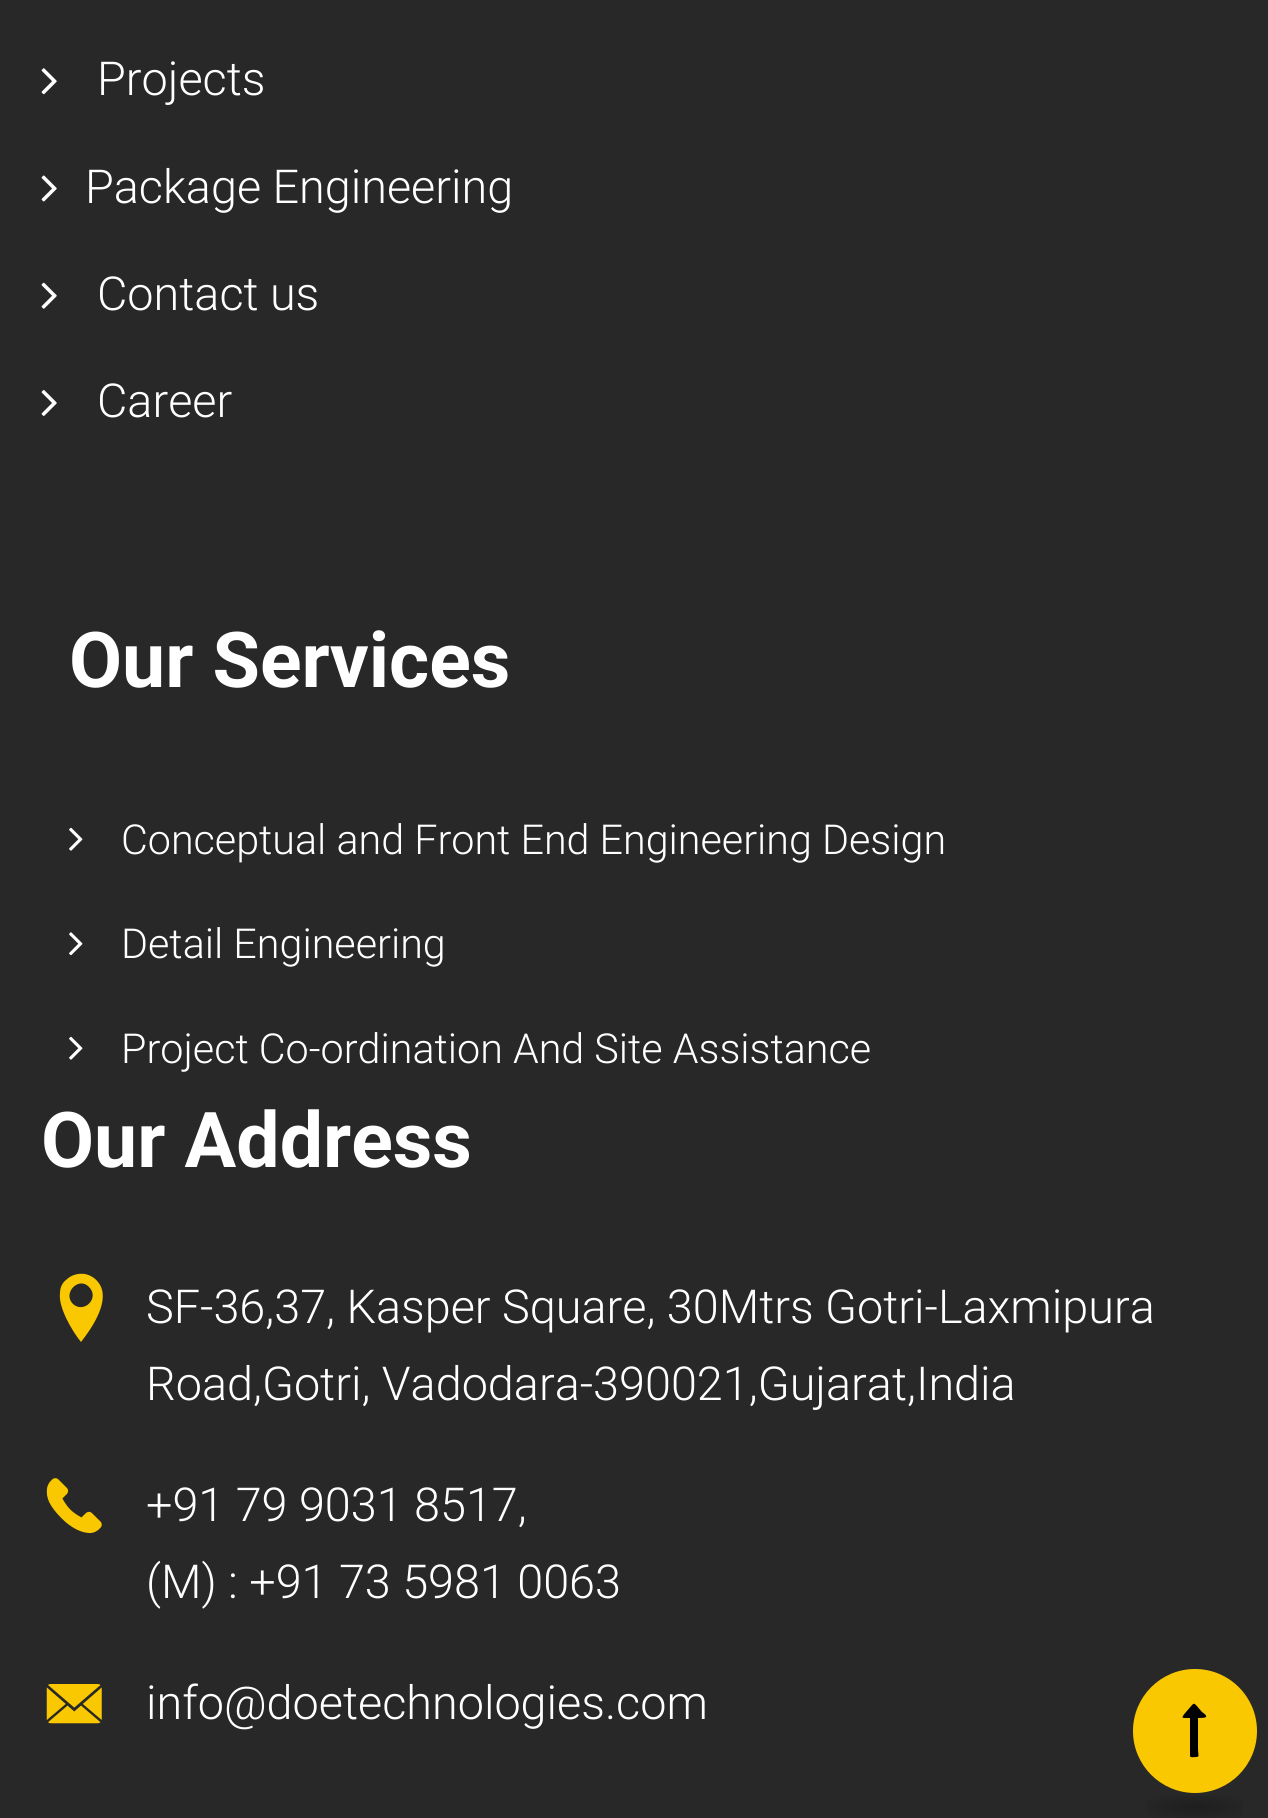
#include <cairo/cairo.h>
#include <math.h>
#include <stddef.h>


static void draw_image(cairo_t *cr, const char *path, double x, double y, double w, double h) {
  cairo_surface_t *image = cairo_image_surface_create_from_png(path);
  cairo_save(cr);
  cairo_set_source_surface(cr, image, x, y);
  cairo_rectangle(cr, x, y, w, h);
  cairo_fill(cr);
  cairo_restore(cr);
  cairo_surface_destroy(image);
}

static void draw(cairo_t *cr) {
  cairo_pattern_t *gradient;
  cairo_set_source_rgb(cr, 40 / 255.0, 40 / 255.0, 40 / 255.0);
  cairo_paint(cr);
  draw_image(cr, "images/1.png", 41, 68, 16, 27);
  draw_image(cr, "images/2.png", 41, 175, 16, 27);
  draw_image(cr, "images/3.png", 41, 282, 16, 27);
  draw_image(cr, "images/4.png", 41, 390, 16, 26);
  draw_image(cr, "images/5.png", 69, 827, 14, 24);
  draw_image(cr, "images/6.png", 69, 932, 14, 24);
  draw_image(cr, "images/5.png", 69, 1036, 14, 24);
  cairo_set_source_rgb(cr, 250 / 255.0, 200 / 255.0, 0);
  cairo_new_path(cr);
  cairo_move_to(cr, 66, 1280);
  cairo_curve_to(cr, 71, 1275, 78, 1273, 85, 1274);
  cairo_curve_to(cr, 90, 1275, 95, 1278, 98, 1282);
  cairo_curve_to(cr, 112, 1299, 92, 1328, 81, 1342);
  cairo_curve_to(cr, 72, 1331, 58, 1307, 60, 1293);
  cairo_curve_to(cr, 60, 1288, 62, 1283, 66, 1280);
  cairo_close_path(cr);
  cairo_move_to(cr, 73, 1304);
  cairo_curve_to(cr, 84, 1314, 100, 1298, 89, 1287);
  cairo_curve_to(cr, 79, 1276, 62, 1293, 73, 1304);
  cairo_close_path(cr);
  cairo_fill(cr);
  draw_image(cr, "images/7.png", 46, 1478, 56, 56);
  draw_image(cr, "images/8.png", 46, 1684, 56, 40);
  cairo_arc(cr, 1195, 1731, 62, 0, 2 * M_PI);
  cairo_fill(cr);
  cairo_set_source_rgb(cr, 0, 0, 0);
  cairo_new_path(cr);
  cairo_move_to(cr, 1206, 1717);
  cairo_curve_to(cr, 1205, 1718, 1200, 1718, 1198, 1718);
  cairo_line_to(cr, 1198, 1749);
  cairo_curve_to(cr, 1198, 1755, 1200, 1757, 1196, 1757);
  cairo_curve_to(cr, 1195, 1757, 1190, 1758, 1190, 1756);
  cairo_line_to(cr, 1190, 1718);
  cairo_curve_to(cr, 1182, 1718, 1180, 1719, 1186, 1712);
  cairo_curve_to(cr, 1196, 1701, 1192, 1701, 1202, 1712);
  cairo_curve_to(cr, 1203, 1713, 1207, 1715, 1206, 1717);
  cairo_close_path(cr);
  cairo_fill(cr);
  gradient = cairo_pattern_create_radial(0, 0, 0, 0, 0, 1);
  cairo_pattern_set_matrix(gradient, &(cairo_matrix_t){1.0 / 80, 0, 0, 1.0 / 19, -1.0 * 1195 / 80, -1.0 * 1807 / 19});
  cairo_pattern_add_color_stop_rgba(gradient, 0, 30 / 255.0, 30 / 255.0, 30 / 255.0, 1);
  cairo_pattern_add_color_stop_rgba(gradient, 0.8, 40 / 255.0, 40 / 255.0, 40 / 255.0, 1);
  cairo_set_source(cr, gradient);
  cairo_pattern_destroy(gradient);
  cairo_rectangle(cr, 1147, 1796, 96, 22);
  cairo_fill(cr);
  cairo_select_font_face(cr, "Roboto Light", CAIRO_FONT_SLANT_NORMAL, CAIRO_FONT_WEIGHT_NORMAL);
  cairo_set_font_size(cr, 46.75);
  cairo_set_source_rgb(cr, 1, 1, 1);
  cairo_move_to(cr, 97, 95);
  cairo_show_text(cr, "Projects");
  cairo_move_to(cr, 85, 203);
  cairo_show_text(cr, "Package Engineering");
  cairo_move_to(cr, 97, 310);
  cairo_show_text(cr, "Contact us");
  cairo_move_to(cr, 97, 417);
  cairo_show_text(cr, "Career");
  cairo_select_font_face(cr, "Roboto", CAIRO_FONT_SLANT_NORMAL, CAIRO_FONT_WEIGHT_BOLD);
  cairo_set_font_size(cr, 77);
  cairo_move_to(cr, 69, 687);
  cairo_show_text(cr, "Our Services");
  cairo_select_font_face(cr, "Roboto Light", CAIRO_FONT_SLANT_NORMAL, CAIRO_FONT_WEIGHT_NORMAL);
  cairo_set_font_size(cr, 41.25);
  cairo_move_to(cr, 121, 854);
  cairo_show_text(cr, "Conceptual and Front End Engineering Design");
  cairo_move_to(cr, 121, 958);
  cairo_show_text(cr, "Detail Engineering");
  cairo_move_to(cr, 121, 1063);
  cairo_show_text(cr, "Project Co-ordination And Site Assistance");
  cairo_select_font_face(cr, "Roboto", CAIRO_FONT_SLANT_NORMAL, CAIRO_FONT_WEIGHT_BOLD);
  cairo_set_font_size(cr, 77);
  cairo_move_to(cr, 41, 1167);
  cairo_show_text(cr, "Our Address");
  cairo_select_font_face(cr, "Roboto Light", CAIRO_FONT_SLANT_NORMAL, CAIRO_FONT_WEIGHT_NORMAL);
  cairo_set_font_size(cr, 46.75);
  cairo_move_to(cr, 146, 1323);
  cairo_show_text(cr, "SF-36,37, Kasper Square, 30Mtrs Gotri-Laxmipura");
  cairo_move_to(cr, 146, 1400);
  cairo_show_text(cr, "Road,Gotri, Vadodara-390021,Gujarat,India");
  cairo_move_to(cr, 146, 1521);
  cairo_show_text(cr, "+91 79 9031 8517,");
  cairo_move_to(cr, 146, 1598);
  cairo_show_text(cr, "(M) : +91 73 5981 0063");
  cairo_move_to(cr, 146, 1719);
  cairo_show_text(cr, "info@doetechnologies.com");
}

int main(void) {
  cairo_surface_t *surface = cairo_image_surface_create(CAIRO_FORMAT_RGB24, 1268, 1818);
  cairo_t *cr = cairo_create(surface);
  cairo_font_options_t *options = cairo_font_options_create();
  cairo_font_options_set_hint_metrics(options, CAIRO_HINT_METRICS_OFF);
  cairo_font_options_set_hint_style(options, CAIRO_HINT_STYLE_NONE);
  cairo_set_font_options(cr, options);
  cairo_set_miter_limit(cr, 4);
  draw(cr);
  cairo_surface_write_to_png(surface, "out.png");
  cairo_font_options_destroy(options);
  cairo_destroy(cr);
  cairo_surface_destroy(surface);
  return 0;
}
